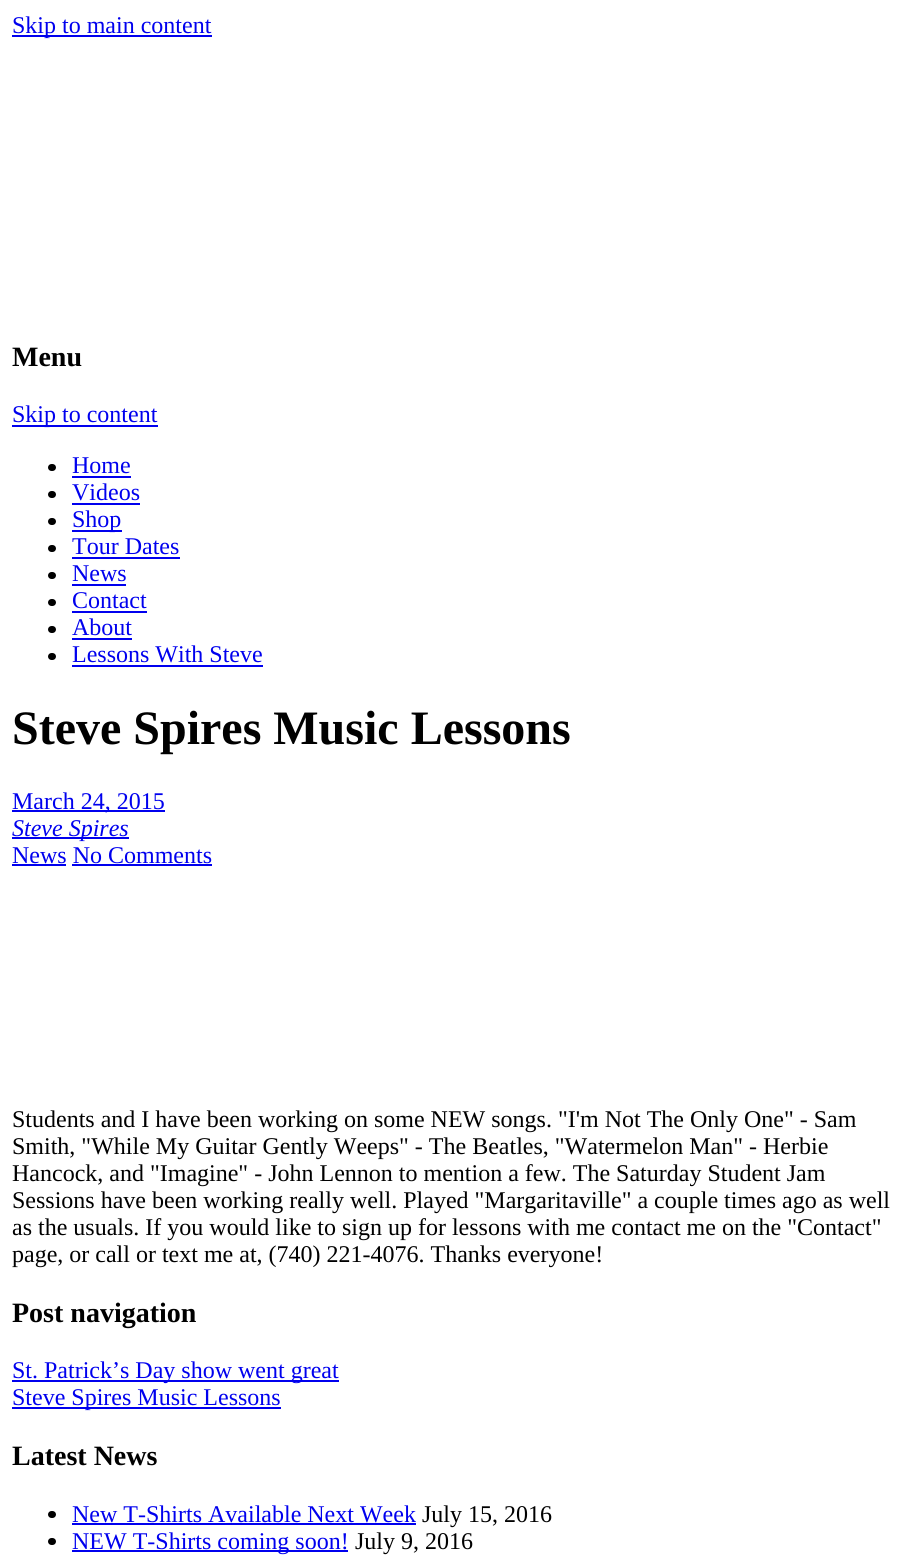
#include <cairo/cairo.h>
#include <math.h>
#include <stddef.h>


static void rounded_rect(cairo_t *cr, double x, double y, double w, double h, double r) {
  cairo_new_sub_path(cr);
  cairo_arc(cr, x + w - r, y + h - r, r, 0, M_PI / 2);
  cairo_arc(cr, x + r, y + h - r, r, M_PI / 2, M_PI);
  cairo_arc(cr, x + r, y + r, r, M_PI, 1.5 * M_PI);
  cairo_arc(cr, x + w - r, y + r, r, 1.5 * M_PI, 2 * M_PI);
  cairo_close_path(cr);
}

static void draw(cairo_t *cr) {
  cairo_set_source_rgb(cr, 1, 1, 1);
  cairo_paint(cr);
  cairo_set_source_rgb(cr, 0, 0, 238 / 255.0);
  cairo_rectangle(cr, 12, 35, 200, 2);
  cairo_fill(cr);
  cairo_rectangle(cr, 12, 425, 146, 2);
  cairo_fill(cr);
  cairo_set_source_rgb(cr, 0, 0, 0);
  rounded_rect(cr, 48, 464, 8, 7, 3.5);
  cairo_fill(cr);
  cairo_set_source_rgb(cr, 0, 0, 238 / 255.0);
  cairo_rectangle(cr, 72, 476, 59, 2);
  cairo_fill(cr);
  cairo_set_source_rgb(cr, 0, 0, 0);
  rounded_rect(cr, 48, 491, 8, 7, 3.5);
  cairo_fill(cr);
  cairo_set_source_rgb(cr, 0, 0, 238 / 255.0);
  cairo_rectangle(cr, 72, 503, 68, 2);
  cairo_fill(cr);
  cairo_set_source_rgb(cr, 0, 0, 0);
  rounded_rect(cr, 48, 518, 8, 7, 3.5);
  cairo_fill(cr);
  cairo_set_source_rgb(cr, 0, 0, 238 / 255.0);
  cairo_rectangle(cr, 72, 530, 50, 2);
  cairo_fill(cr);
  cairo_set_source_rgb(cr, 0, 0, 0);
  rounded_rect(cr, 48, 545, 8, 7, 3.5);
  cairo_fill(cr);
  cairo_set_source_rgb(cr, 0, 0, 238 / 255.0);
  cairo_rectangle(cr, 72, 557, 108, 2);
  cairo_fill(cr);
  cairo_set_source_rgb(cr, 0, 0, 0);
  rounded_rect(cr, 48, 572, 8, 7, 3.5);
  cairo_fill(cr);
  cairo_set_source_rgb(cr, 0, 0, 238 / 255.0);
  cairo_rectangle(cr, 72, 584, 54, 2);
  cairo_fill(cr);
  cairo_set_source_rgb(cr, 0, 0, 0);
  rounded_rect(cr, 48, 599, 8, 7, 3.5);
  cairo_fill(cr);
  cairo_set_source_rgb(cr, 0, 0, 238 / 255.0);
  cairo_rectangle(cr, 72, 611, 75, 2);
  cairo_fill(cr);
  cairo_set_source_rgb(cr, 0, 0, 0);
  rounded_rect(cr, 48, 626, 8, 7, 3.5);
  cairo_fill(cr);
  cairo_set_source_rgb(cr, 0, 0, 238 / 255.0);
  cairo_rectangle(cr, 72, 638, 60, 2);
  cairo_fill(cr);
  cairo_set_source_rgb(cr, 0, 0, 0);
  rounded_rect(cr, 48, 653, 8, 7, 3.5);
  cairo_fill(cr);
  cairo_set_source_rgb(cr, 0, 0, 238 / 255.0);
  cairo_rectangle(cr, 72, 665, 191, 2);
  cairo_fill(cr);
  cairo_rectangle(cr, 12, 810, 153, 2);
  cairo_fill(cr);
  cairo_rectangle(cr, 12, 837, 117, 2);
  cairo_fill(cr);
  cairo_rectangle(cr, 12, 864, 54, 2);
  cairo_fill(cr);
  cairo_rectangle(cr, 72, 864, 140, 2);
  cairo_fill(cr);
  cairo_rectangle(cr, 12, 1380, 327, 2);
  cairo_fill(cr);
  cairo_rectangle(cr, 12, 1407, 269, 2);
  cairo_fill(cr);
  cairo_set_source_rgb(cr, 0, 0, 0);
  rounded_rect(cr, 48, 1511, 8, 7, 3.5);
  cairo_fill(cr);
  cairo_set_source_rgb(cr, 0, 0, 238 / 255.0);
  cairo_rectangle(cr, 72, 1523, 344, 2);
  cairo_fill(cr);
  cairo_set_source_rgb(cr, 0, 0, 0);
  rounded_rect(cr, 48, 1538, 8, 7, 3.5);
  cairo_fill(cr);
  cairo_set_source_rgb(cr, 0, 0, 238 / 255.0);
  cairo_rectangle(cr, 72, 1550, 276, 2);
  cairo_fill(cr);
  cairo_select_font_face(cr, "Liberation Serif", CAIRO_FONT_SLANT_NORMAL, CAIRO_FONT_WEIGHT_NORMAL);
  cairo_set_font_size(cr, 24);
  cairo_move_to(cr, 12, 33);
  cairo_show_text(cr, "Skip to main content");
  cairo_select_font_face(cr, "Liberation Serif", CAIRO_FONT_SLANT_NORMAL, CAIRO_FONT_WEIGHT_BOLD);
  cairo_set_font_size(cr, 28);
  cairo_set_source_rgb(cr, 0, 0, 0);
  cairo_move_to(cr, 12, 366);
  cairo_show_text(cr, "Menu");
  cairo_select_font_face(cr, "Liberation Serif", CAIRO_FONT_SLANT_NORMAL, CAIRO_FONT_WEIGHT_NORMAL);
  cairo_set_font_size(cr, 24);
  cairo_set_source_rgb(cr, 0, 0, 238 / 255.0);
  cairo_move_to(cr, 12, 422);
  cairo_show_text(cr, "Skip to content");
  cairo_move_to(cr, 72, 473);
  cairo_show_text(cr, "Home");
  cairo_move_to(cr, 72, 500);
  cairo_show_text(cr, "Videos");
  cairo_move_to(cr, 72, 527);
  cairo_show_text(cr, "Shop");
  cairo_move_to(cr, 72, 554);
  cairo_show_text(cr, "Tour Dates");
  cairo_move_to(cr, 72, 581);
  cairo_show_text(cr, "News");
  cairo_move_to(cr, 72, 608);
  cairo_show_text(cr, "Contact");
  cairo_move_to(cr, 72, 635);
  cairo_show_text(cr, "About");
  cairo_move_to(cr, 72, 662);
  cairo_show_text(cr, "Lessons With Steve");
  cairo_select_font_face(cr, "Liberation Serif", CAIRO_FONT_SLANT_NORMAL, CAIRO_FONT_WEIGHT_BOLD);
  cairo_set_font_size(cr, 48);
  cairo_set_source_rgb(cr, 0, 0, 0);
  cairo_move_to(cr, 12, 744);
  cairo_show_text(cr, "Steve Spires Music Lessons");
  cairo_select_font_face(cr, "Liberation Serif", CAIRO_FONT_SLANT_NORMAL, CAIRO_FONT_WEIGHT_NORMAL);
  cairo_set_font_size(cr, 24);
  cairo_set_source_rgb(cr, 0, 0, 238 / 255.0);
  cairo_move_to(cr, 12, 809);
  cairo_show_text(cr, "March 24, 2015");
  cairo_select_font_face(cr, "Liberation Serif", CAIRO_FONT_SLANT_ITALIC, CAIRO_FONT_WEIGHT_NORMAL);
  cairo_move_to(cr, 12, 836);
  cairo_show_text(cr, "Steve Spires");
  cairo_select_font_face(cr, "Liberation Serif", CAIRO_FONT_SLANT_NORMAL, CAIRO_FONT_WEIGHT_NORMAL);
  cairo_move_to(cr, 12, 863);
  cairo_show_text(cr, "News No Comments");
  cairo_set_source_rgb(cr, 0, 0, 0);
  cairo_move_to(cr, 12, 1127);
  cairo_show_text(cr, "Students and I have been working on some NEW songs. \"I'm Not The Only One\" - Sam");
  cairo_move_to(cr, 12, 1154);
  cairo_show_text(cr, "Smith, \"While My Guitar Gently Weeps\" - The Beatles, \"Watermelon Man\" - Herbie");
  cairo_move_to(cr, 12, 1181);
  cairo_show_text(cr, "Hancock, and \"Imagine\" - John Lennon to mention a few. The Saturday Student Jam");
  cairo_move_to(cr, 12, 1208);
  cairo_show_text(cr, "Sessions have been working really well. Played \"Margaritaville\" a couple times ago as well");
  cairo_move_to(cr, 12, 1235);
  cairo_show_text(cr, "as the usuals. If you would like to sign up for lessons with me contact me on the \"Contact\"");
  cairo_move_to(cr, 12, 1262);
  cairo_show_text(cr, "page, or call or text me at, (740) 221-4076. Thanks everyone!");
  cairo_select_font_face(cr, "Liberation Serif", CAIRO_FONT_SLANT_NORMAL, CAIRO_FONT_WEIGHT_BOLD);
  cairo_set_font_size(cr, 28);
  cairo_move_to(cr, 12, 1322);
  cairo_show_text(cr, "Post navigation");
  cairo_select_font_face(cr, "Liberation Serif", CAIRO_FONT_SLANT_NORMAL, CAIRO_FONT_WEIGHT_NORMAL);
  cairo_set_font_size(cr, 24);
  cairo_set_source_rgb(cr, 0, 0, 238 / 255.0);
  cairo_move_to(cr, 12, 1378);
  cairo_show_text(cr, "St. Patrick’s Day show went great");
  cairo_move_to(cr, 12, 1405);
  cairo_show_text(cr, "Steve Spires Music Lessons");
  cairo_select_font_face(cr, "Liberation Serif", CAIRO_FONT_SLANT_NORMAL, CAIRO_FONT_WEIGHT_BOLD);
  cairo_set_font_size(cr, 28);
  cairo_set_source_rgb(cr, 0, 0, 0);
  cairo_move_to(cr, 12, 1465);
  cairo_show_text(cr, "Latest News");
  cairo_select_font_face(cr, "Liberation Serif", CAIRO_FONT_SLANT_NORMAL, CAIRO_FONT_WEIGHT_NORMAL);
  cairo_set_font_size(cr, 24);
  cairo_set_source_rgb(cr, 0, 0, 238 / 255.0);
  cairo_move_to(cr, 72, 1522);
  cairo_show_text(cr, "New T-Shirts Available Next Week");
  cairo_set_source_rgb(cr, 0, 0, 0);
  cairo_move_to(cr, 422, 1522);
  cairo_show_text(cr, "July 15, 2016");
  cairo_set_source_rgb(cr, 0, 0, 238 / 255.0);
  cairo_move_to(cr, 72, 1549);
  cairo_show_text(cr, "NEW T-Shirts coming soon!");
  cairo_set_source_rgb(cr, 0, 0, 0);
  cairo_move_to(cr, 355, 1549);
  cairo_show_text(cr, "July 9, 2016");
}

int main(void) {
  cairo_surface_t *surface = cairo_image_surface_create(CAIRO_FORMAT_RGB24, 912, 1559);
  cairo_t *cr = cairo_create(surface);
  cairo_font_options_t *options = cairo_font_options_create();
  cairo_font_options_set_hint_metrics(options, CAIRO_HINT_METRICS_OFF);
  cairo_font_options_set_hint_style(options, CAIRO_HINT_STYLE_NONE);
  cairo_set_font_options(cr, options);
  cairo_set_miter_limit(cr, 4);
  draw(cr);
  cairo_surface_write_to_png(surface, "out.png");
  cairo_font_options_destroy(options);
  cairo_destroy(cr);
  cairo_surface_destroy(surface);
  return 0;
}
